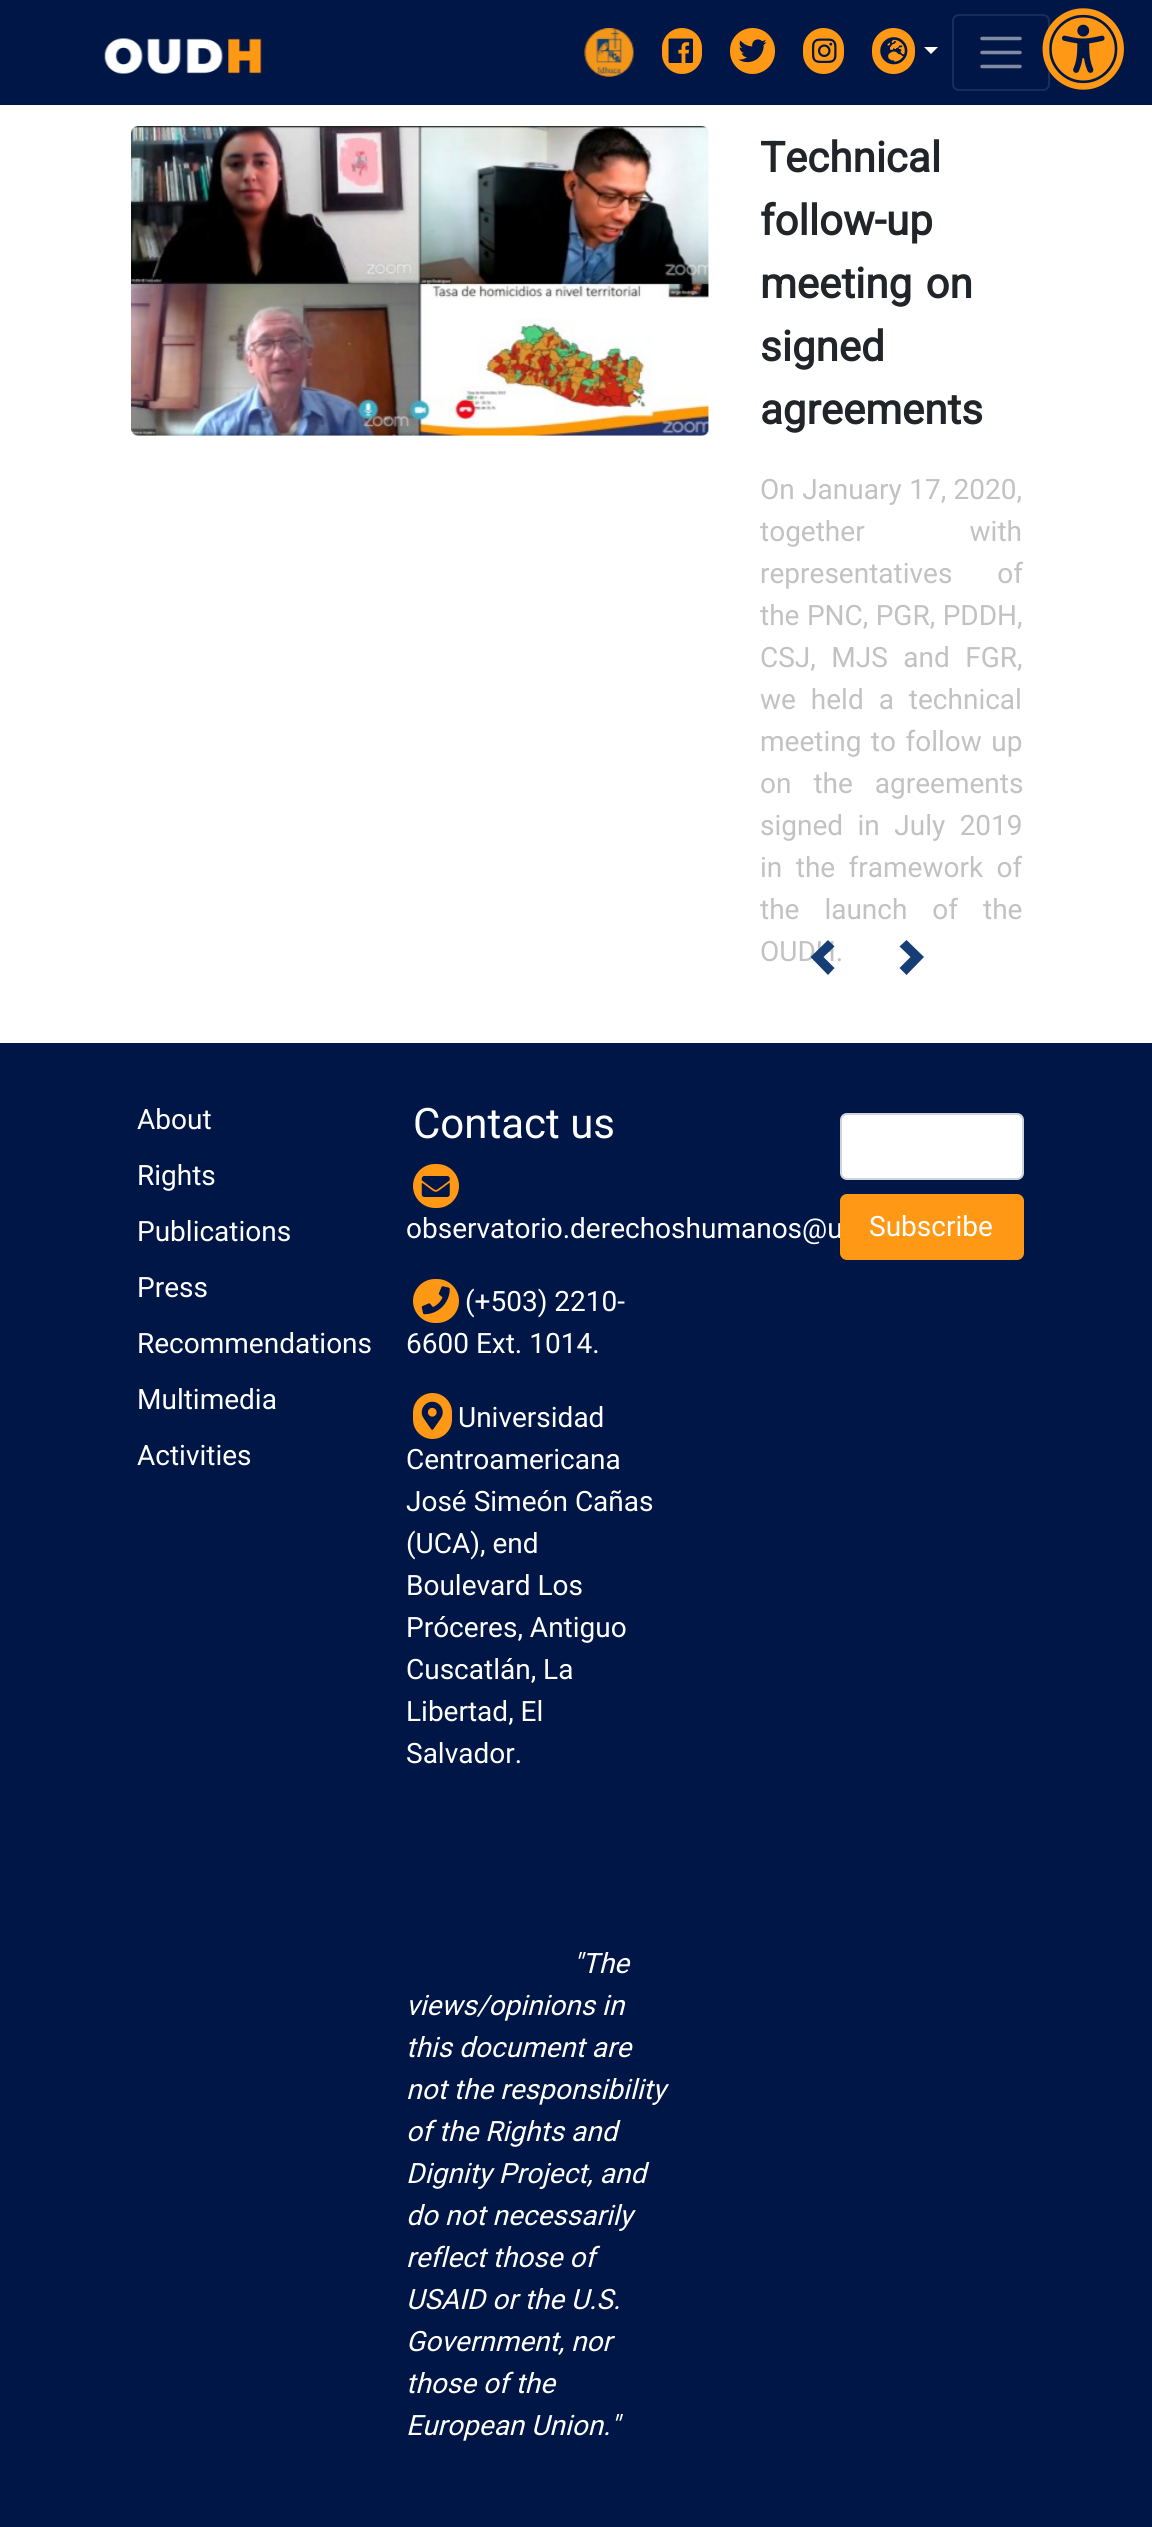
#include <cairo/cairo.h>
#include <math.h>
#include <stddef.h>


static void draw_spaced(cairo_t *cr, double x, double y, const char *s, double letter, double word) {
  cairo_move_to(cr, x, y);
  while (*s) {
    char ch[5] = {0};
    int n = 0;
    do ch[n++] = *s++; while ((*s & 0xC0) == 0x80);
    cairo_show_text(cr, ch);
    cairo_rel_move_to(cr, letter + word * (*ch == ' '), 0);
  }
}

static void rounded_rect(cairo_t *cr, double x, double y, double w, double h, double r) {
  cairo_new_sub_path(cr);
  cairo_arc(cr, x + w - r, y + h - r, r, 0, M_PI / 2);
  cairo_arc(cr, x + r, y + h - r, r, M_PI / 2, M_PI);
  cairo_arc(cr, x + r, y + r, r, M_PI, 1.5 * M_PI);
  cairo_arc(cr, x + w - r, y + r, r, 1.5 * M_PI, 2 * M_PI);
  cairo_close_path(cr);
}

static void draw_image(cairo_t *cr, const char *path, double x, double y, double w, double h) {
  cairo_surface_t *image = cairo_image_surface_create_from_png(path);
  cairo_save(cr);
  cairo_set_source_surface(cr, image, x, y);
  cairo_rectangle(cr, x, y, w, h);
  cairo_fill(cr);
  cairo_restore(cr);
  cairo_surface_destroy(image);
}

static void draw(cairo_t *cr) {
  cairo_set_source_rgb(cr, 1, 1, 1);
  cairo_paint(cr);
  cairo_set_source_rgb(cr, 0, 22 / 255.0, 70 / 255.0);
  cairo_rectangle(cr, 0, 0, 1152, 105);
  cairo_fill(cr);
  rounded_rect(cr, 953, 15, 96, 75, 6);
  cairo_set_source_rgb(cr, 26 / 255.0, 45 / 255.0, 89 / 255.0);
  cairo_stroke(cr);
  draw_image(cr, "images/1.png", 1042, 8, 82, 82);
  draw_image(cr, "images/2.png", 104, 38, 158, 36);
  draw_image(cr, "images/3.png", 584, 28, 50, 49);
  cairo_set_source_rgb(cr, 1, 152 / 255.0, 21 / 255.0);
  rounded_rect(cr, 662, 28, 40, 46, 20);
  cairo_fill(cr);
  draw_image(cr, "images/4.png", 668, 38, 25, 25);
  rounded_rect(cr, 730, 28, 45, 46, 22.5);
  cairo_fill(cr);
  draw_image(cr, "images/5.png", 738, 39, 29, 24);
  rounded_rect(cr, 803, 28, 41, 46, 20.5);
  cairo_fill(cr);
  draw_image(cr, "images/6.png", 812, 38, 25, 25);
  rounded_rect(cr, 872, 28, 43, 46, 21.5);
  cairo_fill(cr);
  draw_image(cr, "images/7.png", 880, 37, 28, 28);
  cairo_set_source_rgb(cr, 1, 1, 1);
  cairo_new_path(cr);
  cairo_move_to(cr, 924, 47);
  cairo_line_to(cr, 938, 47);
  cairo_line_to(cr, 931, 54);
  cairo_close_path(cr);
  cairo_fill(cr);
  cairo_new_path(cr);
  cairo_move_to(cr, 982, 38.5);
  cairo_line_to(cr, 1020, 38.5);
  cairo_move_to(cr, 982, 52.5);
  cairo_line_to(cr, 1020, 52.5);
  cairo_move_to(cr, 982, 66.5);
  cairo_line_to(cr, 1020, 66.5);
  cairo_set_source_rgb(cr, 128 / 255.0, 139 / 255.0, 163 / 255.0);
  cairo_set_line_width(cr, 3.5);
  cairo_set_line_cap(cr, CAIRO_LINE_CAP_ROUND);
  cairo_stroke(cr);
  draw_image(cr, "images/8.png", 131, 126, 578, 310);
  cairo_set_source_rgb(cr, 22 / 255.0, 61 / 255.0, 117 / 255.0);
  cairo_new_path(cr);
  cairo_move_to(cr, 906.5, 940);
  cairo_line_to(cr, 899.5, 946.5);
  cairo_line_to(cr, 910.5, 957);
  cairo_line_to(cr, 899.5, 968);
  cairo_line_to(cr, 906.5, 975);
  cairo_line_to(cr, 924, 957);
  cairo_close_path(cr);
  cairo_fill(cr);
  cairo_set_source_rgb(cr, 0, 22 / 255.0, 70 / 255.0);
  cairo_rectangle(cr, 0, 1043, 1152, 1484);
  cairo_fill(cr);
  cairo_set_source_rgb(cr, 1, 152 / 255.0, 21 / 255.0);
  rounded_rect(cr, 413, 1164, 46, 44, 22);
  cairo_fill(cr);
  draw_image(cr, "images/9.png", 421, 1176, 29, 21);
  rounded_rect(cr, 413, 1279, 46, 44, 22);
  cairo_fill(cr);
  draw_image(cr, "images/10.png", 421, 1286, 29, 29);
  rounded_rect(cr, 413, 1393, 39, 46, 19.5);
  cairo_fill(cr);
  draw_image(cr, "images/11.png", 421, 1401, 22, 29);
  cairo_set_source_rgb(cr, 1, 1, 1);
  rounded_rect(cr, 841, 1114, 182, 65, 6);
  cairo_fill_preserve(cr);
  cairo_set_source_rgb(cr, 206 / 255.0, 212 / 255.0, 218 / 255.0);
  cairo_set_line_width(cr, 2);
  cairo_set_line_cap(cr, CAIRO_LINE_CAP_BUTT);
  cairo_stroke(cr);
  cairo_select_font_face(cr, "Roboto", CAIRO_FONT_SLANT_NORMAL, CAIRO_FONT_WEIGHT_BOLD);
  cairo_set_font_size(cr, 42);
  cairo_set_source_rgb(cr, 33 / 255.0, 37 / 255.0, 41 / 255.0);
  cairo_move_to(cr, 760, 172);
  cairo_show_text(cr, "Technical");
  cairo_move_to(cr, 760, 235);
  cairo_show_text(cr, "follow-up");
  draw_spaced(cr, 760, 298, "meeting on", 0, 3);
  cairo_move_to(cr, 760, 361);
  cairo_show_text(cr, "signed");
  cairo_move_to(cr, 760, 424);
  cairo_show_text(cr, "agreements");
  cairo_select_font_face(cr, "Roboto", CAIRO_FONT_SLANT_NORMAL, CAIRO_FONT_WEIGHT_NORMAL);
  cairo_set_font_size(cr, 28);
  cairo_set_source_rgb(cr, 194 / 255.0, 194 / 255.0, 194 / 255.0);
  draw_spaced(cr, 760, 499, "On January 17, 2020,", 0, 0.5);
  draw_spaced(cr, 760, 541, "together with", 0, 98);
  draw_spaced(cr, 760, 583, "representatives of", 0, 38);
  draw_spaced(cr, 760, 625, "the PNC, PGR, PDDH,", 0, 0.5);
  draw_spaced(cr, 760, 667, "CSJ, MJS and FGR,", 0, 8.5);
  draw_spaced(cr, 760, 709, "we held a technical", 0, 8);
  draw_spaced(cr, 760, 751, "meeting to follow up", 0, 2.5);
  draw_spaced(cr, 760, 793, "on the agreements", 0, 15);
  draw_spaced(cr, 760, 835, "signed in July 2019", 0, 7.5);
  draw_spaced(cr, 760, 877, "in the framework of", 0, 6.5);
  draw_spaced(cr, 760, 919, "the launch of the", 0, 18);
  cairo_move_to(cr, 760, 961);
  cairo_show_text(cr, "OUDH.");
  cairo_set_source_rgb(cr, 22 / 255.0, 61 / 255.0, 117 / 255.0);
  cairo_new_path(cr);
  cairo_move_to(cr, 828, 940);
  cairo_line_to(cr, 810.5, 957);
  cairo_line_to(cr, 828, 975);
  cairo_line_to(cr, 834.5, 968);
  cairo_line_to(cr, 823.5, 957);
  cairo_line_to(cr, 834.5, 946.5);
  cairo_close_path(cr);
  cairo_fill(cr);
  cairo_set_source_rgb(cr, 1, 1, 1);
  cairo_move_to(cr, 137, 1129);
  cairo_show_text(cr, "About");
  cairo_move_to(cr, 137, 1185);
  cairo_show_text(cr, "Rights");
  cairo_move_to(cr, 137, 1241);
  cairo_show_text(cr, "Publications");
  cairo_move_to(cr, 137, 1297);
  cairo_show_text(cr, "Press");
  cairo_move_to(cr, 137, 1353);
  cairo_show_text(cr, "Recommendations");
  cairo_move_to(cr, 137, 1409);
  cairo_show_text(cr, "Multimedia");
  cairo_move_to(cr, 137, 1465);
  cairo_show_text(cr, "Activities");
  cairo_set_font_size(cr, 42);
  cairo_move_to(cr, 413, 1138);
  cairo_show_text(cr, "Contact us");
  cairo_set_font_size(cr, 28);
  cairo_move_to(cr, 406, 1238);
  cairo_show_text(cr, "observatorio.derechoshumanos@u");
  cairo_move_to(cr, 465, 1311);
  cairo_show_text(cr, "(+503) 2210-");
  cairo_move_to(cr, 406, 1353);
  cairo_show_text(cr, "6600 Ext. 1014.");
  cairo_move_to(cr, 458, 1427);
  cairo_show_text(cr, "Universidad");
  cairo_move_to(cr, 406, 1469);
  cairo_show_text(cr, "Centroamericana");
  cairo_move_to(cr, 406, 1511);
  cairo_show_text(cr, "José Simeón Cañas");
  cairo_move_to(cr, 406, 1553);
  cairo_show_text(cr, "(UCA), end");
  cairo_move_to(cr, 406, 1595);
  cairo_show_text(cr, "Boulevard Los");
  cairo_move_to(cr, 406, 1637);
  cairo_show_text(cr, "Próceres, Antiguo");
  cairo_move_to(cr, 406, 1679);
  cairo_show_text(cr, "Cuscatlán, La");
  cairo_move_to(cr, 406, 1721);
  cairo_show_text(cr, "Libertad, El");
  cairo_move_to(cr, 406, 1763);
  cairo_show_text(cr, "Salvador.");
  cairo_select_font_face(cr, "Roboto", CAIRO_FONT_SLANT_ITALIC, CAIRO_FONT_WEIGHT_NORMAL);
  cairo_move_to(cr, 573, 1973);
  cairo_show_text(cr, "\"The");
  cairo_move_to(cr, 406, 2015);
  cairo_show_text(cr, "views/opinions in");
  cairo_move_to(cr, 406, 2057);
  cairo_show_text(cr, "this document are");
  cairo_move_to(cr, 406, 2099);
  cairo_show_text(cr, "not the responsibility");
  cairo_move_to(cr, 406, 2141);
  cairo_show_text(cr, "of the Rights and");
  cairo_move_to(cr, 406, 2183);
  cairo_show_text(cr, "Dignity Project, and");
  cairo_move_to(cr, 406, 2225);
  cairo_show_text(cr, "do not necessarily");
  cairo_move_to(cr, 406, 2267);
  cairo_show_text(cr, "reflect those of");
  cairo_move_to(cr, 406, 2309);
  cairo_show_text(cr, "USAID or the U.S.");
  cairo_move_to(cr, 406, 2351);
  cairo_show_text(cr, "Government, nor");
  cairo_move_to(cr, 406, 2393);
  cairo_show_text(cr, "those of the");
  cairo_move_to(cr, 406, 2435);
  cairo_show_text(cr, "European Union.\"");
  cairo_set_source_rgb(cr, 1, 152 / 255.0, 21 / 255.0);
  rounded_rect(cr, 840, 1194, 184, 66, 7);
  cairo_fill(cr);
  cairo_select_font_face(cr, "Roboto", CAIRO_FONT_SLANT_NORMAL, CAIRO_FONT_WEIGHT_NORMAL);
  cairo_set_source_rgb(cr, 1, 1, 1);
  cairo_move_to(cr, 869, 1236);
  cairo_show_text(cr, "Subscribe");
}

int main(void) {
  cairo_surface_t *surface = cairo_image_surface_create(CAIRO_FORMAT_RGB24, 1152, 2527);
  cairo_t *cr = cairo_create(surface);
  cairo_font_options_t *options = cairo_font_options_create();
  cairo_font_options_set_hint_metrics(options, CAIRO_HINT_METRICS_OFF);
  cairo_font_options_set_hint_style(options, CAIRO_HINT_STYLE_NONE);
  cairo_set_font_options(cr, options);
  cairo_set_miter_limit(cr, 4);
  draw(cr);
  cairo_surface_write_to_png(surface, "out.png");
  cairo_font_options_destroy(options);
  cairo_destroy(cr);
  cairo_surface_destroy(surface);
  return 0;
}
